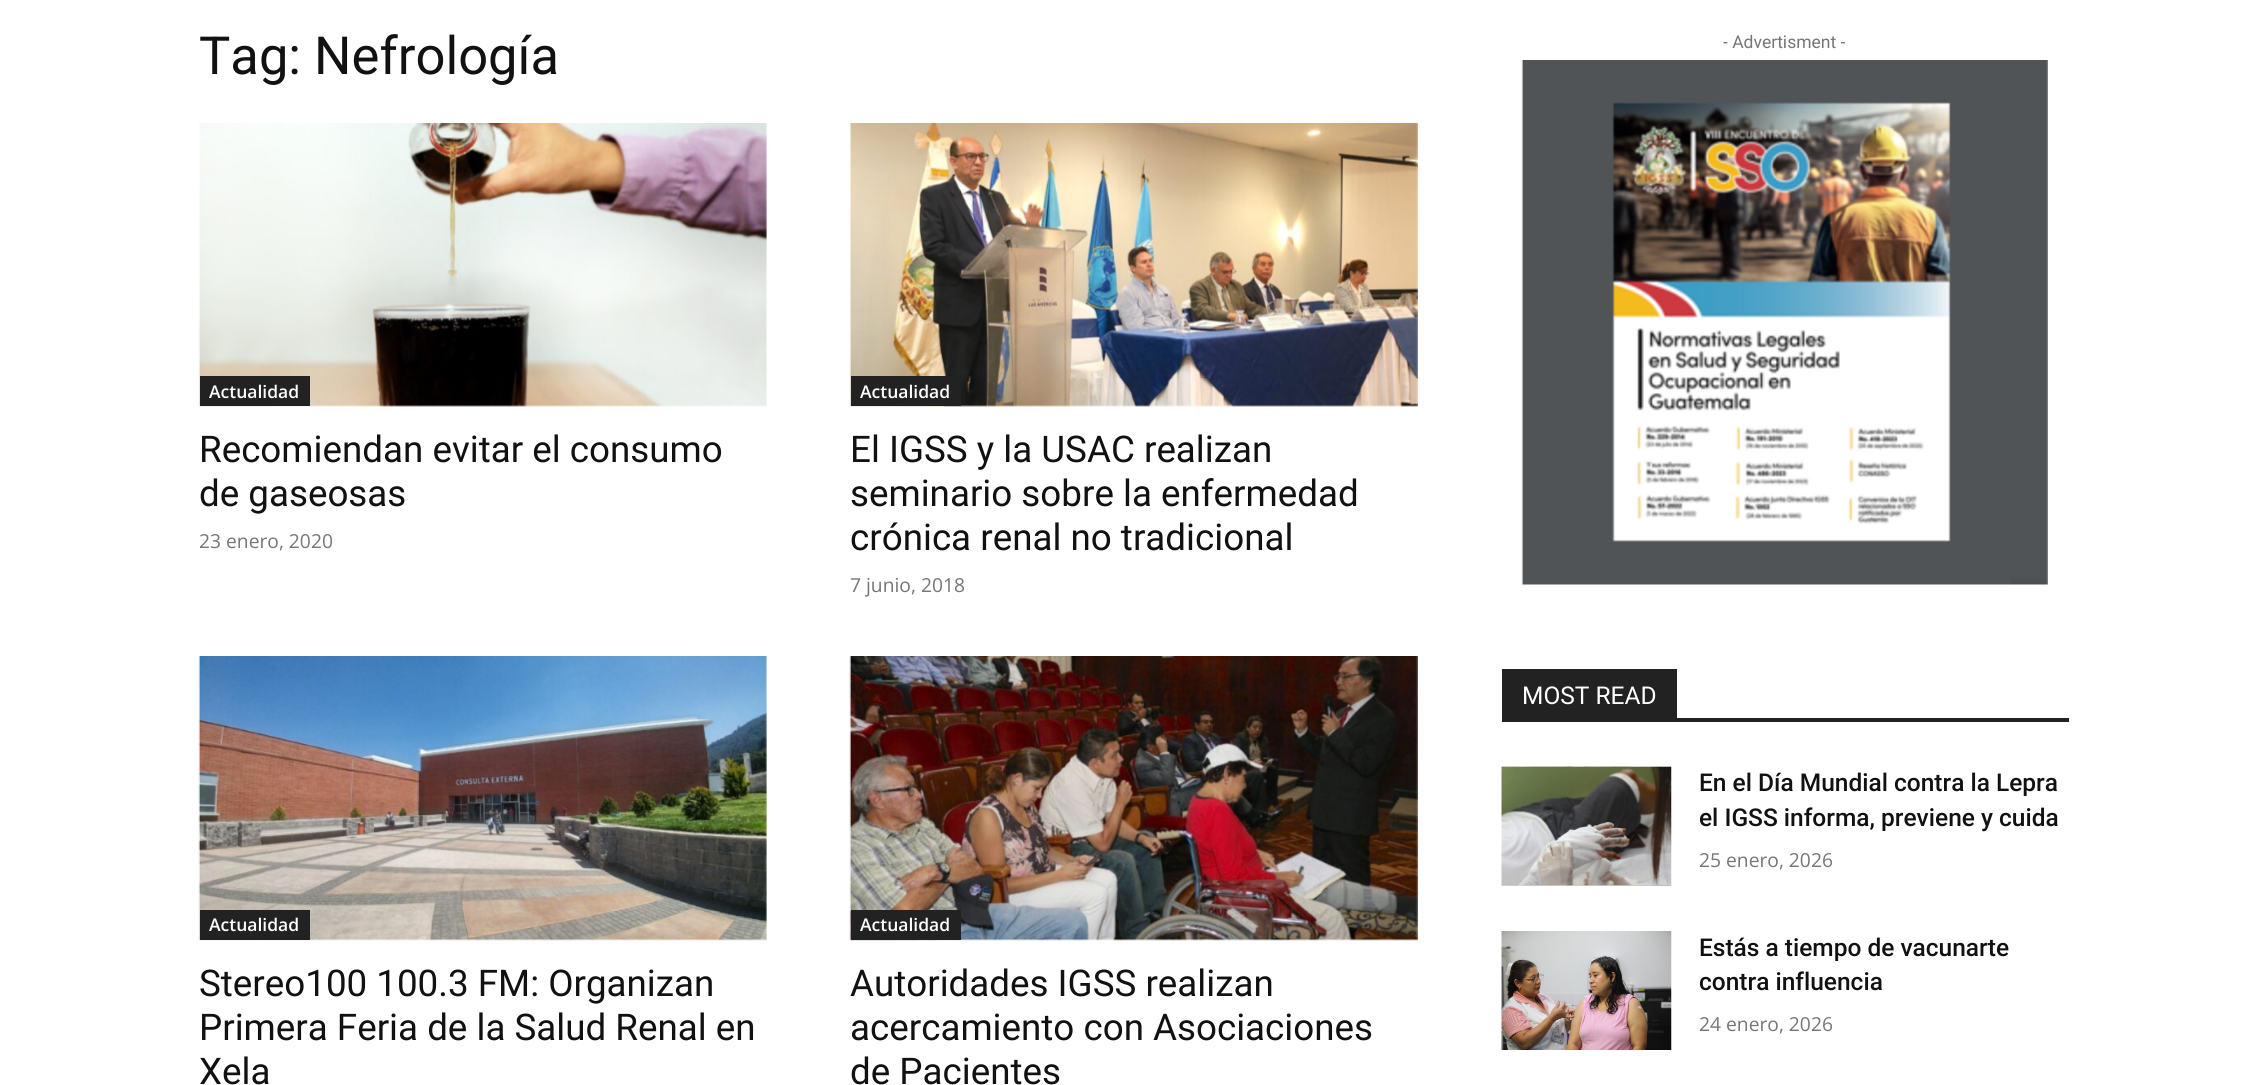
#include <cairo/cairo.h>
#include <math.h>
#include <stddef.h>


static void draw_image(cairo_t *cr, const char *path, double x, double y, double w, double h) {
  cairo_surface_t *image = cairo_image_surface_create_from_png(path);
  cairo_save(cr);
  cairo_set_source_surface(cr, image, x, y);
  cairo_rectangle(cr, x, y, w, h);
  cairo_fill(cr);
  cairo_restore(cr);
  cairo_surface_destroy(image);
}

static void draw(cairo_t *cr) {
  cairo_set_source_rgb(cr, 1, 1, 1);
  cairo_paint(cr);
  draw_image(cr, "images/1.png", 198, 123, 569, 284);
  cairo_set_source_rgb(cr, 34 / 255.0, 34 / 255.0, 34 / 255.0);
  cairo_rectangle(cr, 200, 376, 110, 30);
  cairo_fill(cr);
  draw_image(cr, "images/2.png", 849, 123, 569, 284);
  cairo_rectangle(cr, 851, 376, 110, 30);
  cairo_fill(cr);
  draw_image(cr, "images/3.png", 198, 656, 569, 285);
  cairo_rectangle(cr, 200, 910, 110, 30);
  cairo_fill(cr);
  draw_image(cr, "images/4.png", 849, 656, 569, 285);
  cairo_rectangle(cr, 851, 910, 110, 30);
  cairo_fill(cr);
  draw_image(cr, "images/5.png", 1521, 60, 527, 525);
  cairo_rectangle(cr, 1502, 718, 567, 4);
  cairo_fill(cr);
  cairo_rectangle(cr, 1502, 669, 175, 49);
  cairo_fill(cr);
  draw_image(cr, "images/6.png", 1501, 766, 171, 120);
  draw_image(cr, "images/7.png", 1501, 931, 171, 119);
  cairo_select_font_face(cr, "Roboto", CAIRO_FONT_SLANT_NORMAL, CAIRO_FONT_WEIGHT_NORMAL);
  cairo_set_font_size(cr, 52.5);
  cairo_set_source_rgb(cr, 17 / 255.0, 17 / 255.0, 17 / 255.0);
  cairo_move_to(cr, 199, 74);
  cairo_show_text(cr, "Tag: Nefrología");
  cairo_select_font_face(cr, "Open Sans SemiBold", CAIRO_FONT_SLANT_NORMAL, CAIRO_FONT_WEIGHT_NORMAL);
  cairo_set_font_size(cr, 17.5);
  cairo_set_source_rgb(cr, 1, 1, 1);
  cairo_move_to(cr, 209, 398);
  cairo_show_text(cr, "Actualidad");
  cairo_select_font_face(cr, "Roboto", CAIRO_FONT_SLANT_NORMAL, CAIRO_FONT_WEIGHT_NORMAL);
  cairo_set_font_size(cr, 36.75);
  cairo_set_source_rgb(cr, 17 / 255.0, 17 / 255.0, 17 / 255.0);
  cairo_move_to(cr, 199, 462);
  cairo_show_text(cr, "Recomiendan evitar el consumo");
  cairo_move_to(cr, 199, 506);
  cairo_show_text(cr, "de gaseosas");
  cairo_select_font_face(cr, "Open Sans", CAIRO_FONT_SLANT_NORMAL, CAIRO_FONT_WEIGHT_NORMAL);
  cairo_set_font_size(cr, 19.25);
  cairo_set_source_rgb(cr, 118 / 255.0, 118 / 255.0, 118 / 255.0);
  cairo_move_to(cr, 199, 548);
  cairo_show_text(cr, "23 enero, 2020");
  cairo_select_font_face(cr, "Open Sans SemiBold", CAIRO_FONT_SLANT_NORMAL, CAIRO_FONT_WEIGHT_NORMAL);
  cairo_set_font_size(cr, 17.5);
  cairo_set_source_rgb(cr, 1, 1, 1);
  cairo_move_to(cr, 860, 398);
  cairo_show_text(cr, "Actualidad");
  cairo_select_font_face(cr, "Roboto", CAIRO_FONT_SLANT_NORMAL, CAIRO_FONT_WEIGHT_NORMAL);
  cairo_set_font_size(cr, 36.75);
  cairo_set_source_rgb(cr, 17 / 255.0, 17 / 255.0, 17 / 255.0);
  cairo_move_to(cr, 850, 462);
  cairo_show_text(cr, "El IGSS y la USAC realizan");
  cairo_move_to(cr, 850, 506);
  cairo_show_text(cr, "seminario sobre la enfermedad");
  cairo_move_to(cr, 850, 550);
  cairo_show_text(cr, "crónica renal no tradicional");
  cairo_select_font_face(cr, "Open Sans", CAIRO_FONT_SLANT_NORMAL, CAIRO_FONT_WEIGHT_NORMAL);
  cairo_set_font_size(cr, 19.25);
  cairo_set_source_rgb(cr, 118 / 255.0, 118 / 255.0, 118 / 255.0);
  cairo_move_to(cr, 850, 592);
  cairo_show_text(cr, "7 junio, 2018");
  cairo_select_font_face(cr, "Open Sans SemiBold", CAIRO_FONT_SLANT_NORMAL, CAIRO_FONT_WEIGHT_NORMAL);
  cairo_set_font_size(cr, 17.5);
  cairo_set_source_rgb(cr, 1, 1, 1);
  cairo_move_to(cr, 209, 931);
  cairo_show_text(cr, "Actualidad");
  cairo_select_font_face(cr, "Roboto", CAIRO_FONT_SLANT_NORMAL, CAIRO_FONT_WEIGHT_NORMAL);
  cairo_set_font_size(cr, 36.75);
  cairo_set_source_rgb(cr, 17 / 255.0, 17 / 255.0, 17 / 255.0);
  cairo_move_to(cr, 199, 996);
  cairo_show_text(cr, "Stereo100 100.3 FM: Organizan");
  cairo_move_to(cr, 199, 1040);
  cairo_show_text(cr, "Primera Feria de la Salud Renal en");
  cairo_move_to(cr, 199, 1084);
  cairo_show_text(cr, "Xela");
  cairo_select_font_face(cr, "Open Sans SemiBold", CAIRO_FONT_SLANT_NORMAL, CAIRO_FONT_WEIGHT_NORMAL);
  cairo_set_font_size(cr, 17.5);
  cairo_set_source_rgb(cr, 1, 1, 1);
  cairo_move_to(cr, 860, 931);
  cairo_show_text(cr, "Actualidad");
  cairo_select_font_face(cr, "Roboto", CAIRO_FONT_SLANT_NORMAL, CAIRO_FONT_WEIGHT_NORMAL);
  cairo_set_font_size(cr, 36.75);
  cairo_set_source_rgb(cr, 17 / 255.0, 17 / 255.0, 17 / 255.0);
  cairo_move_to(cr, 850, 996);
  cairo_show_text(cr, "Autoridades IGSS realizan");
  cairo_move_to(cr, 850, 1040);
  cairo_show_text(cr, "acercamiento con Asociaciones");
  cairo_move_to(cr, 850, 1084);
  cairo_show_text(cr, "de Pacientes");
  cairo_set_font_size(cr, 17.5);
  cairo_set_source_rgb(cr, 118 / 255.0, 118 / 255.0, 118 / 255.0);
  cairo_move_to(cr, 1723, 48);
  cairo_show_text(cr, "- Advertisment -");
  cairo_set_font_size(cr, 24.5);
  cairo_set_source_rgb(cr, 1, 1, 1);
  cairo_move_to(cr, 1522, 704);
  cairo_show_text(cr, "MOST READ");
  cairo_select_font_face(cr, "Roboto Medium", CAIRO_FONT_SLANT_NORMAL, CAIRO_FONT_WEIGHT_NORMAL);
  cairo_set_source_rgb(cr, 17 / 255.0, 17 / 255.0, 17 / 255.0);
  cairo_move_to(cr, 1699, 791);
  cairo_show_text(cr, "En el Día Mundial contra la Lepra");
  cairo_move_to(cr, 1699, 826);
  cairo_show_text(cr, "el IGSS informa, previene y cuida");
  cairo_select_font_face(cr, "Open Sans", CAIRO_FONT_SLANT_NORMAL, CAIRO_FONT_WEIGHT_NORMAL);
  cairo_set_font_size(cr, 19.25);
  cairo_set_source_rgb(cr, 118 / 255.0, 118 / 255.0, 118 / 255.0);
  cairo_move_to(cr, 1699, 867);
  cairo_show_text(cr, "25 enero, 2026");
  cairo_select_font_face(cr, "Roboto Medium", CAIRO_FONT_SLANT_NORMAL, CAIRO_FONT_WEIGHT_NORMAL);
  cairo_set_font_size(cr, 24.5);
  cairo_set_source_rgb(cr, 17 / 255.0, 17 / 255.0, 17 / 255.0);
  cairo_move_to(cr, 1699, 956);
  cairo_show_text(cr, "Estás a tiempo de vacunarte");
  cairo_move_to(cr, 1699, 990);
  cairo_show_text(cr, "contra influencia");
  cairo_select_font_face(cr, "Open Sans", CAIRO_FONT_SLANT_NORMAL, CAIRO_FONT_WEIGHT_NORMAL);
  cairo_set_font_size(cr, 19.25);
  cairo_set_source_rgb(cr, 118 / 255.0, 118 / 255.0, 118 / 255.0);
  cairo_move_to(cr, 1699, 1031);
  cairo_show_text(cr, "24 enero, 2026");
}

int main(void) {
  cairo_surface_t *surface = cairo_image_surface_create(CAIRO_FORMAT_RGB24, 2266, 1085);
  cairo_t *cr = cairo_create(surface);
  cairo_font_options_t *options = cairo_font_options_create();
  cairo_font_options_set_hint_metrics(options, CAIRO_HINT_METRICS_OFF);
  cairo_font_options_set_hint_style(options, CAIRO_HINT_STYLE_NONE);
  cairo_set_font_options(cr, options);
  cairo_set_miter_limit(cr, 4);
  draw(cr);
  cairo_surface_write_to_png(surface, "out.png");
  cairo_font_options_destroy(options);
  cairo_destroy(cr);
  cairo_surface_destroy(surface);
  return 0;
}
